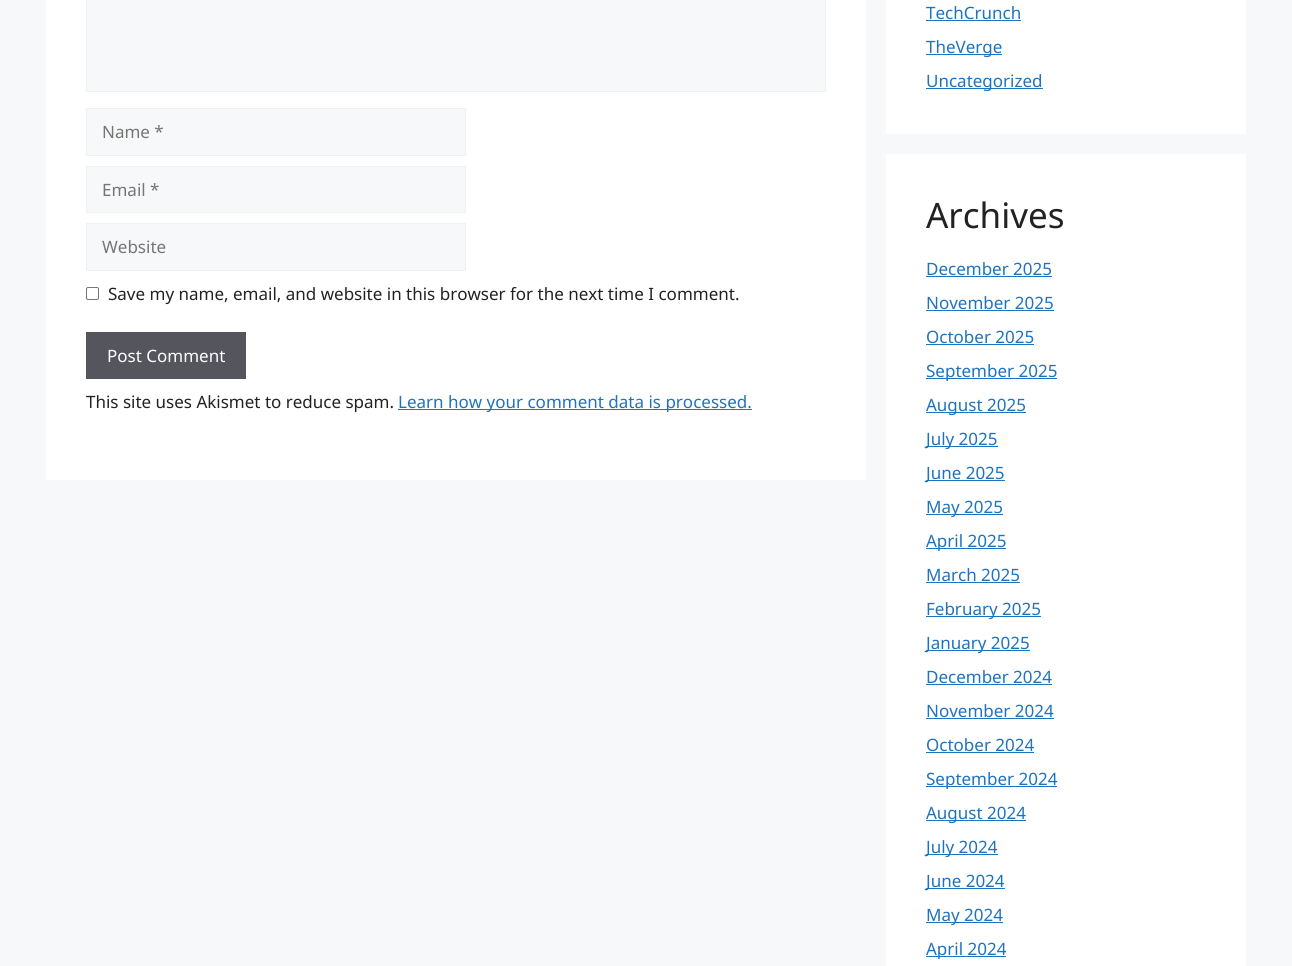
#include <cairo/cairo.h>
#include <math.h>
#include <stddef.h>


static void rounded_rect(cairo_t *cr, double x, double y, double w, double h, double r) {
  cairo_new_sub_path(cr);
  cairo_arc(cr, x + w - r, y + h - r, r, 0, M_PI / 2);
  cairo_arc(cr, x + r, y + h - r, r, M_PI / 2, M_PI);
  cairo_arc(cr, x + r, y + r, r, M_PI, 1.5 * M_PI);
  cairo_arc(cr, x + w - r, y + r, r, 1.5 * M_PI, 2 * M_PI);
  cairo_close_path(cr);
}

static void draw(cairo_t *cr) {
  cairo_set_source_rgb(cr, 247 / 255.0, 248 / 255.0, 249 / 255.0);
  cairo_paint(cr);
  cairo_set_source_rgb(cr, 1, 1, 1);
  cairo_rectangle(cr, 46, 0, 820, 480);
  cairo_fill(cr);
  cairo_set_source_rgb(cr, 247 / 255.0, 248 / 255.0, 249 / 255.0);
  cairo_rectangle(cr, 86.5, -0.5, 739, 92);
  cairo_fill_preserve(cr);
  cairo_set_source_rgb(cr, 240 / 255.0, 240 / 255.0, 240 / 255.0);
  cairo_set_line_width(cr, 1);
  cairo_stroke(cr);
  cairo_set_source_rgb(cr, 247 / 255.0, 248 / 255.0, 249 / 255.0);
  cairo_rectangle(cr, 86.5, 108.5, 379, 47);
  cairo_fill_preserve(cr);
  cairo_set_source_rgb(cr, 240 / 255.0, 240 / 255.0, 240 / 255.0);
  cairo_stroke(cr);
  cairo_set_source_rgb(cr, 247 / 255.0, 248 / 255.0, 249 / 255.0);
  cairo_rectangle(cr, 86.5, 166.5, 379, 46);
  cairo_fill_preserve(cr);
  cairo_set_source_rgb(cr, 240 / 255.0, 240 / 255.0, 240 / 255.0);
  cairo_stroke(cr);
  cairo_set_source_rgb(cr, 247 / 255.0, 248 / 255.0, 249 / 255.0);
  cairo_rectangle(cr, 86.5, 223.5, 379, 47);
  cairo_fill_preserve(cr);
  cairo_set_source_rgb(cr, 240 / 255.0, 240 / 255.0, 240 / 255.0);
  cairo_stroke(cr);
  rounded_rect(cr, 86.5, 287.5, 12, 12, 1.5);
  cairo_set_source_rgb(cr, 118 / 255.0, 118 / 255.0, 118 / 255.0);
  cairo_stroke(cr);
  cairo_set_source_rgb(cr, 85 / 255.0, 85 / 255.0, 94 / 255.0);
  cairo_rectangle(cr, 86, 332, 160, 47);
  cairo_fill(cr);
  cairo_set_source_rgb(cr, 30 / 255.0, 115 / 255.0, 190 / 255.0);
  cairo_rectangle(cr, 398, 409, 354, 1);
  cairo_fill(cr);
  cairo_set_source_rgb(cr, 1, 1, 1);
  cairo_rectangle(cr, 886, 0, 360, 134);
  cairo_fill(cr);
  cairo_set_source_rgb(cr, 30 / 255.0, 115 / 255.0, 190 / 255.0);
  cairo_rectangle(cr, 926, 20, 95, 1);
  cairo_fill(cr);
  cairo_rectangle(cr, 926, 54, 76, 1);
  cairo_fill(cr);
  cairo_rectangle(cr, 926, 88, 117, 1);
  cairo_fill(cr);
  cairo_set_source_rgb(cr, 1, 1, 1);
  cairo_rectangle(cr, 886, 154, 360, 812);
  cairo_fill(cr);
  cairo_set_source_rgb(cr, 30 / 255.0, 115 / 255.0, 190 / 255.0);
  cairo_rectangle(cr, 926, 276, 126, 1);
  cairo_fill(cr);
  cairo_rectangle(cr, 926, 310, 128, 1);
  cairo_fill(cr);
  cairo_rectangle(cr, 926, 344, 108, 1);
  cairo_fill(cr);
  cairo_rectangle(cr, 926, 378, 131, 1);
  cairo_fill(cr);
  cairo_rectangle(cr, 926, 412, 100, 1);
  cairo_fill(cr);
  cairo_rectangle(cr, 926, 446, 72, 1);
  cairo_fill(cr);
  cairo_rectangle(cr, 926, 480, 79, 1);
  cairo_fill(cr);
  cairo_rectangle(cr, 926, 514, 77, 1);
  cairo_fill(cr);
  cairo_rectangle(cr, 926, 548, 80, 1);
  cairo_fill(cr);
  cairo_rectangle(cr, 926, 582, 94, 1);
  cairo_fill(cr);
  cairo_rectangle(cr, 926, 616, 115, 1);
  cairo_fill(cr);
  cairo_rectangle(cr, 926, 650, 104, 1);
  cairo_fill(cr);
  cairo_rectangle(cr, 926, 684, 126, 1);
  cairo_fill(cr);
  cairo_rectangle(cr, 926, 718, 128, 1);
  cairo_fill(cr);
  cairo_rectangle(cr, 926, 752, 108, 1);
  cairo_fill(cr);
  cairo_rectangle(cr, 926, 786, 131, 1);
  cairo_fill(cr);
  cairo_rectangle(cr, 926, 820, 100, 1);
  cairo_fill(cr);
  cairo_rectangle(cr, 926, 854, 72, 1);
  cairo_fill(cr);
  cairo_rectangle(cr, 926, 888, 79, 1);
  cairo_fill(cr);
  cairo_rectangle(cr, 926, 922, 77, 1);
  cairo_fill(cr);
  cairo_rectangle(cr, 926, 956, 80, 1);
  cairo_fill(cr);
  cairo_select_font_face(cr, "Noto Sans", CAIRO_FONT_SLANT_NORMAL, CAIRO_FONT_WEIGHT_NORMAL);
  cairo_set_font_size(cr, 17);
  cairo_set_source_rgb(cr, 117 / 255.0, 117 / 255.0, 117 / 255.0);
  cairo_move_to(cr, 102, 138);
  cairo_show_text(cr, "Name *");
  cairo_move_to(cr, 102, 196);
  cairo_show_text(cr, "Email *");
  cairo_move_to(cr, 102, 253);
  cairo_show_text(cr, "Website");
  cairo_set_source_rgb(cr, 34 / 255.0, 34 / 255.0, 34 / 255.0);
  cairo_move_to(cr, 108, 300);
  cairo_show_text(cr, "Save my name, email, and website in this browser for the next time I comment.");
  cairo_set_source_rgb(cr, 1, 1, 1);
  cairo_move_to(cr, 107, 362);
  cairo_show_text(cr, "Post Comment");
  cairo_set_source_rgb(cr, 34 / 255.0, 34 / 255.0, 34 / 255.0);
  cairo_move_to(cr, 86, 408);
  cairo_show_text(cr, "This site uses Akismet to reduce spam.");
  cairo_set_source_rgb(cr, 30 / 255.0, 115 / 255.0, 190 / 255.0);
  cairo_move_to(cr, 398, 408);
  cairo_show_text(cr, "Learn how your comment data is processed.");
  cairo_move_to(cr, 926, 19);
  cairo_show_text(cr, "TechCrunch");
  cairo_move_to(cr, 926, 53);
  cairo_show_text(cr, "TheVerge");
  cairo_move_to(cr, 926, 87);
  cairo_show_text(cr, "Uncategorized");
  cairo_set_font_size(cr, 35);
  cairo_set_source_rgb(cr, 34 / 255.0, 34 / 255.0, 34 / 255.0);
  cairo_move_to(cr, 926, 228);
  cairo_show_text(cr, "Archives");
  cairo_set_font_size(cr, 17);
  cairo_set_source_rgb(cr, 30 / 255.0, 115 / 255.0, 190 / 255.0);
  cairo_move_to(cr, 926, 275);
  cairo_show_text(cr, "December 2025");
  cairo_move_to(cr, 926, 309);
  cairo_show_text(cr, "November 2025");
  cairo_move_to(cr, 926, 343);
  cairo_show_text(cr, "October 2025");
  cairo_move_to(cr, 926, 377);
  cairo_show_text(cr, "September 2025");
  cairo_move_to(cr, 926, 411);
  cairo_show_text(cr, "August 2025");
  cairo_move_to(cr, 926, 445);
  cairo_show_text(cr, "July 2025");
  cairo_move_to(cr, 926, 479);
  cairo_show_text(cr, "June 2025");
  cairo_move_to(cr, 926, 513);
  cairo_show_text(cr, "May 2025");
  cairo_move_to(cr, 926, 547);
  cairo_show_text(cr, "April 2025");
  cairo_move_to(cr, 926, 581);
  cairo_show_text(cr, "March 2025");
  cairo_move_to(cr, 926, 615);
  cairo_show_text(cr, "February 2025");
  cairo_move_to(cr, 926, 649);
  cairo_show_text(cr, "January 2025");
  cairo_move_to(cr, 926, 683);
  cairo_show_text(cr, "December 2024");
  cairo_move_to(cr, 926, 717);
  cairo_show_text(cr, "November 2024");
  cairo_move_to(cr, 926, 751);
  cairo_show_text(cr, "October 2024");
  cairo_move_to(cr, 926, 785);
  cairo_show_text(cr, "September 2024");
  cairo_move_to(cr, 926, 819);
  cairo_show_text(cr, "August 2024");
  cairo_move_to(cr, 926, 853);
  cairo_show_text(cr, "July 2024");
  cairo_move_to(cr, 926, 887);
  cairo_show_text(cr, "June 2024");
  cairo_move_to(cr, 926, 921);
  cairo_show_text(cr, "May 2024");
  cairo_move_to(cr, 926, 955);
  cairo_show_text(cr, "April 2024");
}

int main(void) {
  cairo_surface_t *surface = cairo_image_surface_create(CAIRO_FORMAT_RGB24, 1292, 966);
  cairo_t *cr = cairo_create(surface);
  cairo_font_options_t *options = cairo_font_options_create();
  cairo_font_options_set_hint_metrics(options, CAIRO_HINT_METRICS_OFF);
  cairo_font_options_set_hint_style(options, CAIRO_HINT_STYLE_NONE);
  cairo_set_font_options(cr, options);
  cairo_set_miter_limit(cr, 4);
  draw(cr);
  cairo_surface_write_to_png(surface, "out.png");
  cairo_font_options_destroy(options);
  cairo_destroy(cr);
  cairo_surface_destroy(surface);
  return 0;
}
